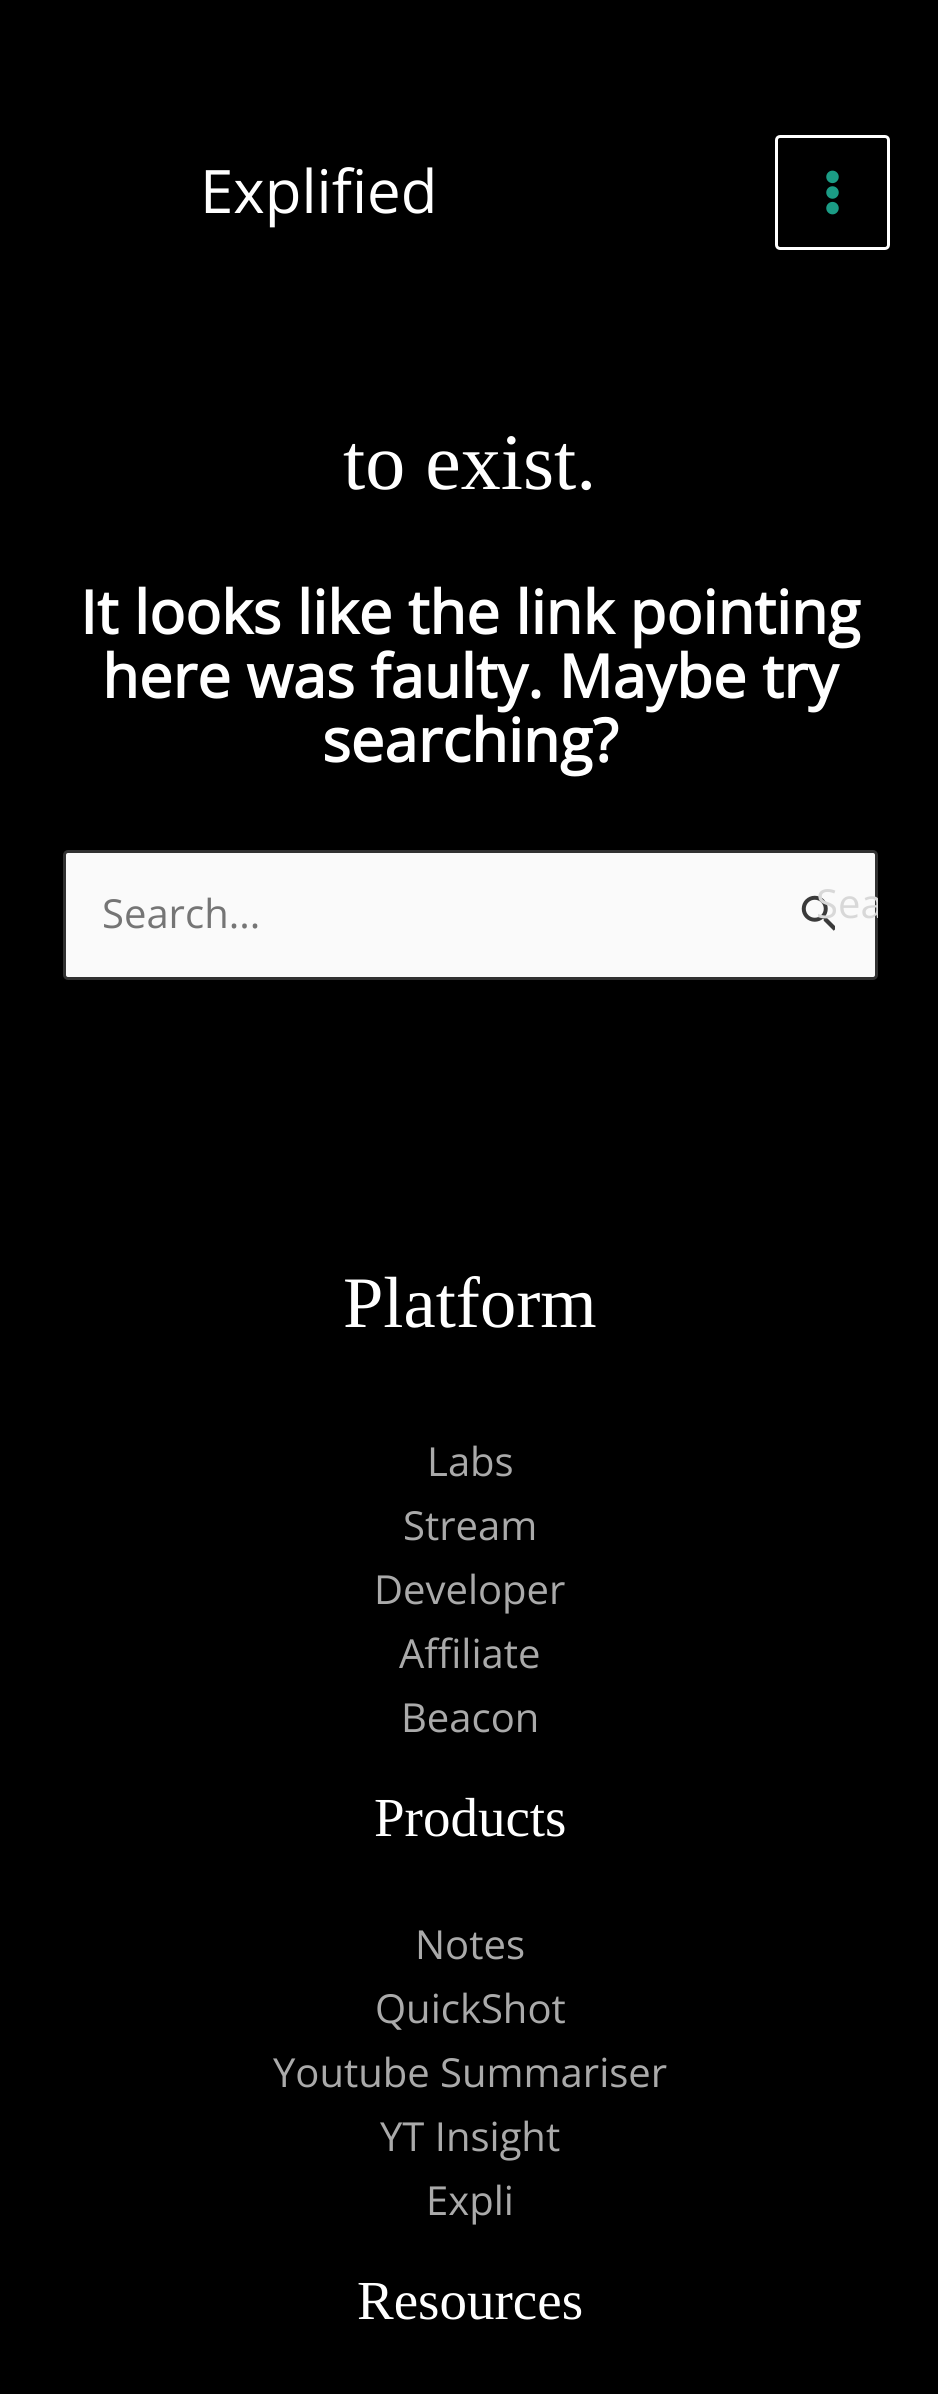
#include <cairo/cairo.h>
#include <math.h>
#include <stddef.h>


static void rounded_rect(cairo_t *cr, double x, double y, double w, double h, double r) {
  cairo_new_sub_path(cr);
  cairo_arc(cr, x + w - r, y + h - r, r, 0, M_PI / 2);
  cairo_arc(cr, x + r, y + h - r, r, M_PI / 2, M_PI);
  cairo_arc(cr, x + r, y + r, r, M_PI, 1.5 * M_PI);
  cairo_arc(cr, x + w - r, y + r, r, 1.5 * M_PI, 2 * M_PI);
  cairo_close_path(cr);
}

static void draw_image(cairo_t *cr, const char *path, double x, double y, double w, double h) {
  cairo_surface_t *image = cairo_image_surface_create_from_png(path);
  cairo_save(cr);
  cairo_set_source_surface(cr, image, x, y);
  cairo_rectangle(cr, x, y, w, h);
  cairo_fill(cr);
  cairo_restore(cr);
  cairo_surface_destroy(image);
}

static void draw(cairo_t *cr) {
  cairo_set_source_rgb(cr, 0, 0, 0);
  cairo_paint(cr);
  rounded_rect(cr, 776.5, 136.5, 112, 112, 3.5);
  cairo_set_source_rgb(cr, 1, 1, 1);
  cairo_set_line_width(cr, 3);
  cairo_stroke(cr);
  draw_image(cr, "images/1.png", 826, 170, 13, 45);
  cairo_set_source_rgb(cr, 250 / 255.0, 250 / 255.0, 250 / 255.0);
  rounded_rect(cr, 64.5, 851.5, 812, 127, 3.5);
  cairo_fill_preserve(cr);
  cairo_set_source_rgb(cr, 49 / 255.0, 49 / 255.0, 49 / 255.0);
  cairo_stroke(cr);
  draw_image(cr, "images/2.png", 801, 895, 34, 36);
  cairo_select_font_face(cr, "Open Sans", CAIRO_FONT_SLANT_NORMAL, CAIRO_FONT_WEIGHT_NORMAL);
  cairo_set_font_size(cr, 60);
  cairo_set_source_rgb(cr, 1, 1, 1);
  cairo_move_to(cr, 200, 213);
  cairo_show_text(cr, "Explified");
  cairo_select_font_face(cr, "Liberation Serif", CAIRO_FONT_SLANT_NORMAL, CAIRO_FONT_WEIGHT_NORMAL);
  cairo_set_font_size(cr, 80);
  cairo_move_to(cr, 343, 489);
  cairo_show_text(cr, "to exist.");
  cairo_select_font_face(cr, "Open Sans", CAIRO_FONT_SLANT_NORMAL, CAIRO_FONT_WEIGHT_BOLD);
  cairo_set_font_size(cr, 60);
  cairo_move_to(cr, 80, 634);
  cairo_show_text(cr, "It looks like the link pointing");
  cairo_move_to(cr, 102, 698);
  cairo_show_text(cr, "here was faulty. Maybe try");
  cairo_move_to(cr, 322, 762);
  cairo_show_text(cr, "searching?");
  cairo_select_font_face(cr, "Open Sans", CAIRO_FONT_SLANT_NORMAL, CAIRO_FONT_WEIGHT_NORMAL);
  cairo_set_font_size(cr, 40);
  cairo_set_source_rgb(cr, 117 / 255.0, 117 / 255.0, 117 / 255.0);
  cairo_move_to(cr, 102, 928);
  cairo_show_text(cr, "Search...");
  cairo_save(cr);
  rounded_rect(cr, 765, 850, 113, 105, 5);
  cairo_clip(cr);
  cairo_set_source_rgb(cr, 216 / 255.0, 216 / 255.0, 216 / 255.0);
  cairo_move_to(cr, 816, 918);
  cairo_show_text(cr, "Sea");
  cairo_restore(cr);
  cairo_select_font_face(cr, "Liberation Serif", CAIRO_FONT_SLANT_NORMAL, CAIRO_FONT_WEIGHT_NORMAL);
  cairo_set_font_size(cr, 72.5);
  cairo_set_source_rgb(cr, 1, 1, 1);
  cairo_move_to(cr, 343, 1327);
  cairo_show_text(cr, "Platform");
  cairo_select_font_face(cr, "Open Sans", CAIRO_FONT_SLANT_NORMAL, CAIRO_FONT_WEIGHT_NORMAL);
  cairo_set_font_size(cr, 40);
  cairo_set_source_rgb(cr, 170 / 255.0, 170 / 255.0, 170 / 255.0);
  cairo_move_to(cr, 427, 1476);
  cairo_show_text(cr, "Labs");
  cairo_move_to(cr, 403, 1540);
  cairo_show_text(cr, "Stream");
  cairo_move_to(cr, 374, 1604);
  cairo_show_text(cr, "Developer");
  cairo_move_to(cr, 399, 1668);
  cairo_show_text(cr, "Affiliate");
  cairo_move_to(cr, 401, 1732);
  cairo_show_text(cr, "Beacon");
  cairo_select_font_face(cr, "Liberation Serif", CAIRO_FONT_SLANT_NORMAL, CAIRO_FONT_WEIGHT_NORMAL);
  cairo_set_font_size(cr, 55);
  cairo_set_source_rgb(cr, 1, 1, 1);
  cairo_move_to(cr, 374, 1836);
  cairo_show_text(cr, "Products");
  cairo_select_font_face(cr, "Open Sans", CAIRO_FONT_SLANT_NORMAL, CAIRO_FONT_WEIGHT_NORMAL);
  cairo_set_font_size(cr, 40);
  cairo_set_source_rgb(cr, 170 / 255.0, 170 / 255.0, 170 / 255.0);
  cairo_move_to(cr, 415, 1959);
  cairo_show_text(cr, "Notes");
  cairo_move_to(cr, 375, 2023);
  cairo_show_text(cr, "QuickShot");
  cairo_move_to(cr, 273, 2087);
  cairo_show_text(cr, "Youtube Summariser");
  cairo_move_to(cr, 380, 2151);
  cairo_show_text(cr, "YT Insight");
  cairo_move_to(cr, 426, 2215);
  cairo_show_text(cr, "Expli");
  cairo_select_font_face(cr, "Liberation Serif", CAIRO_FONT_SLANT_NORMAL, CAIRO_FONT_WEIGHT_NORMAL);
  cairo_set_font_size(cr, 55);
  cairo_set_source_rgb(cr, 1, 1, 1);
  cairo_move_to(cr, 357, 2319);
  cairo_show_text(cr, "Resources");
}

int main(void) {
  cairo_surface_t *surface = cairo_image_surface_create(CAIRO_FORMAT_RGB24, 938, 2394);
  cairo_t *cr = cairo_create(surface);
  cairo_font_options_t *options = cairo_font_options_create();
  cairo_font_options_set_hint_metrics(options, CAIRO_HINT_METRICS_OFF);
  cairo_font_options_set_hint_style(options, CAIRO_HINT_STYLE_NONE);
  cairo_set_font_options(cr, options);
  cairo_set_miter_limit(cr, 4);
  draw(cr);
  cairo_surface_write_to_png(surface, "out.png");
  cairo_font_options_destroy(options);
  cairo_destroy(cr);
  cairo_surface_destroy(surface);
  return 0;
}
